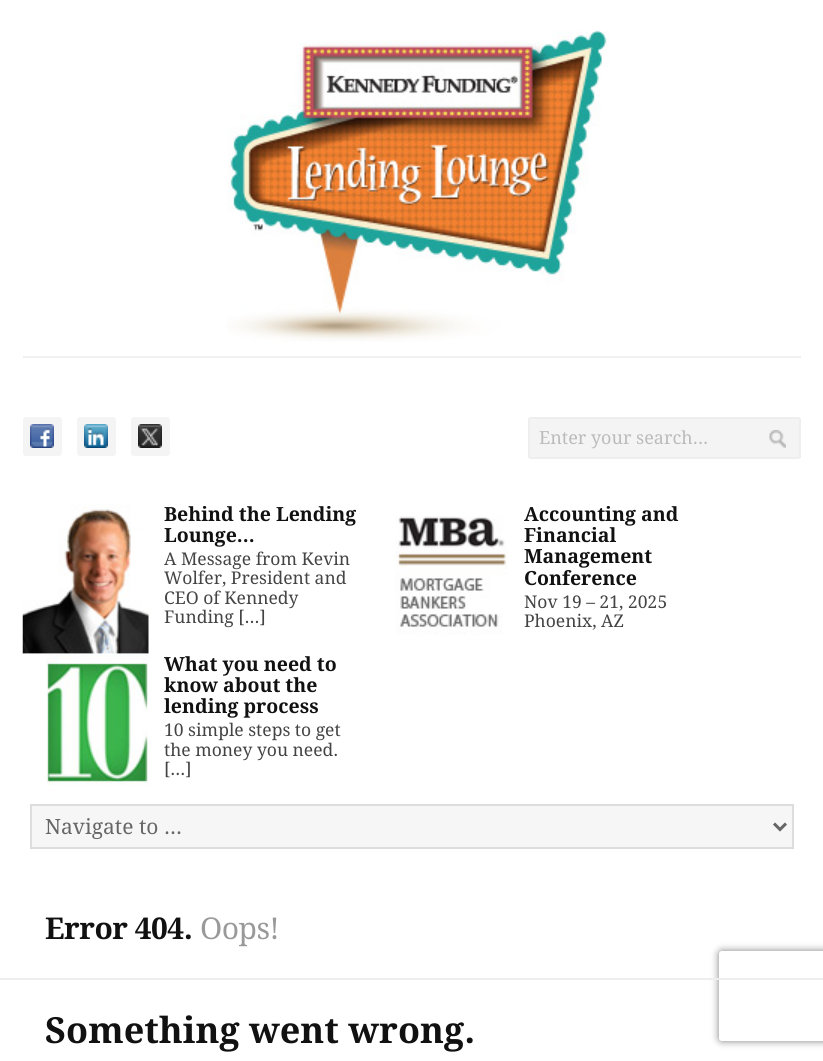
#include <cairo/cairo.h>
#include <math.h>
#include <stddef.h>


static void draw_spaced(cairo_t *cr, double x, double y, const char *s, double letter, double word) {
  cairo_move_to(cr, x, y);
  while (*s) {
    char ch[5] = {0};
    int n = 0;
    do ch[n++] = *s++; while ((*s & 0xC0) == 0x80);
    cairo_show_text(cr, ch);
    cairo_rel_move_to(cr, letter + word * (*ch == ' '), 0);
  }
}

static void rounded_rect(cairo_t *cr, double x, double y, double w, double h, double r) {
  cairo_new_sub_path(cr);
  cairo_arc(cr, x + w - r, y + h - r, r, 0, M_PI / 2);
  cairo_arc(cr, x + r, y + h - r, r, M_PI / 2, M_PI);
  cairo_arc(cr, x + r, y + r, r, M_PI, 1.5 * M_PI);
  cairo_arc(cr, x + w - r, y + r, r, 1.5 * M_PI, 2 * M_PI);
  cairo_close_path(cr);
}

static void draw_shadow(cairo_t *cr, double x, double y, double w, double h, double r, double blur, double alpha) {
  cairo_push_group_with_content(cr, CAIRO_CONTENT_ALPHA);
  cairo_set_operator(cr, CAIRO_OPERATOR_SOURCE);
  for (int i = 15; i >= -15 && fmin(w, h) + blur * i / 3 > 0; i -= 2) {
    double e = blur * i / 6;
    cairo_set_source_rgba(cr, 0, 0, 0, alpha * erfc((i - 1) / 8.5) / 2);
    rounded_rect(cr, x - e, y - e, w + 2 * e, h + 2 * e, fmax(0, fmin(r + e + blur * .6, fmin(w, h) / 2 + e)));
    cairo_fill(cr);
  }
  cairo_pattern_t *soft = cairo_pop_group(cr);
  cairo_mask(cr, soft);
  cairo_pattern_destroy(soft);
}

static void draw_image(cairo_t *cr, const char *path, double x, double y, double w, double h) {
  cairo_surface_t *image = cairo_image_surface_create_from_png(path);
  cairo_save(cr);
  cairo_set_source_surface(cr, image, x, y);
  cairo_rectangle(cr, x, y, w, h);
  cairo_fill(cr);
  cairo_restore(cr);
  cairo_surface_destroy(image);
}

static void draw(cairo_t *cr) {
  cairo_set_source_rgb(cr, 1, 1, 1);
  cairo_paint(cr);
  cairo_set_source_rgb(cr, 241 / 255.0, 241 / 255.0, 241 / 255.0);
  cairo_rectangle(cr, 23, 356, 778, 2);
  cairo_fill(cr);
  draw_image(cr, "images/1.png", 226, 30, 383, 312);
  cairo_set_source_rgb(cr, 244 / 255.0, 244 / 255.0, 244 / 255.0);
  rounded_rect(cr, 23, 417, 39, 39, 3);
  cairo_fill(cr);
  draw_image(cr, "images/2.png", 30, 424, 24, 24);
  rounded_rect(cr, 77, 417, 39, 39, 3);
  cairo_fill(cr);
  draw_image(cr, "images/3.png", 84, 424, 24, 24);
  rounded_rect(cr, 131, 417, 39, 39, 3);
  cairo_fill(cr);
  draw_image(cr, "images/4.png", 138, 424, 24, 24);
  rounded_rect(cr, 528, 417, 273, 42, 3);
  cairo_fill(cr);
  draw_image(cr, "images/5.png", 769, 430, 17, 18);
  rounded_rect(cr, 529, 418, 271, 40, 2);
  cairo_set_source_rgb(cr, 238 / 255.0, 238 / 255.0, 238 / 255.0);
  cairo_stroke(cr);
  draw_image(cr, "images/6.png", 22, 504, 127, 150);
  draw_image(cr, "images/7.png", 395, 516, 114, 119);
  draw_image(cr, "images/8.png", 23, 653, 126, 133);
  cairo_set_source_rgb(cr, 246 / 255.0, 246 / 255.0, 246 / 255.0);
  cairo_rectangle(cr, 31, 805, 762, 43);
  cairo_fill_preserve(cr);
  cairo_set_source_rgb(cr, 221 / 255.0, 221 / 255.0, 221 / 255.0);
  cairo_stroke(cr);
  cairo_new_path(cr);
  cairo_move_to(cr, 774, 823.5);
  cairo_line_to(cr, 780, 829.5);
  cairo_line_to(cr, 786, 823.5);
  cairo_set_source_rgb(cr, 102 / 255.0, 102 / 255.0, 102 / 255.0);
  cairo_set_line_width(cr, 3);
  cairo_stroke(cr);
  cairo_save(cr);
  cairo_set_fill_rule(cr, CAIRO_FILL_RULE_EVEN_ODD);
  cairo_new_path(cr);
  cairo_move_to(cr, 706, 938);
  cairo_line_to(cr, 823, 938);
  cairo_line_to(cr, 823, 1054);
  cairo_line_to(cr, 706, 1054);
  cairo_close_path(cr);
  cairo_move_to(cr, 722, 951);
  cairo_line_to(cr, 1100, 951);
  cairo_curve_to(cr, 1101.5, 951, 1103, 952.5, 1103, 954);
  cairo_line_to(cr, 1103, 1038);
  cairo_curve_to(cr, 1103, 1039.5, 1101.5, 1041, 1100, 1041);
  cairo_line_to(cr, 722, 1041);
  cairo_curve_to(cr, 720.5, 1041, 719, 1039.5, 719, 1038);
  cairo_line_to(cr, 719, 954);
  cairo_curve_to(cr, 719, 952.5, 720.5, 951, 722, 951);
  cairo_close_path(cr);
  cairo_clip(cr);
  cairo_set_source_rgb(cr, 128 / 255.0, 128 / 255.0, 128 / 255.0);
  draw_shadow(cr, 719, 951, 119, 90, 3, 4, 1);
  cairo_restore(cr);
  cairo_set_source_rgb(cr, 238 / 255.0, 238 / 255.0, 238 / 255.0);
  cairo_rectangle(cr, 0, 978, 823, 2);
  cairo_fill(cr);
  cairo_select_font_face(cr, "Droid Serif", CAIRO_FONT_SLANT_NORMAL, CAIRO_FONT_WEIGHT_NORMAL);
  cairo_set_font_size(cr, 18);
  cairo_set_source_rgb(cr, 187 / 255.0, 187 / 255.0, 187 / 255.0);
  cairo_move_to(cr, 539, 444);
  cairo_show_text(cr, "Enter your search...");
  cairo_select_font_face(cr, "Droid Serif", CAIRO_FONT_SLANT_NORMAL, CAIRO_FONT_WEIGHT_BOLD);
  cairo_set_font_size(cr, 19.5);
  cairo_set_source_rgb(cr, 17 / 255.0, 17 / 255.0, 17 / 255.0);
  cairo_move_to(cr, 164, 521);
  cairo_show_text(cr, "Behind the Lending");
  cairo_move_to(cr, 164, 542);
  cairo_show_text(cr, "Lounge...");
  cairo_select_font_face(cr, "Droid Serif", CAIRO_FONT_SLANT_NORMAL, CAIRO_FONT_WEIGHT_NORMAL);
  cairo_set_font_size(cr, 17.5);
  cairo_set_source_rgb(cr, 68 / 255.0, 68 / 255.0, 68 / 255.0);
  cairo_move_to(cr, 164, 565);
  cairo_show_text(cr, "A Message from Kevin");
  cairo_move_to(cr, 164, 584);
  cairo_show_text(cr, "Wolfer, President and");
  cairo_move_to(cr, 164, 604);
  cairo_show_text(cr, "CEO of Kennedy");
  cairo_move_to(cr, 164, 623);
  cairo_show_text(cr, "Funding [...]");
  cairo_select_font_face(cr, "Droid Serif", CAIRO_FONT_SLANT_NORMAL, CAIRO_FONT_WEIGHT_BOLD);
  cairo_set_font_size(cr, 19.5);
  cairo_set_source_rgb(cr, 17 / 255.0, 17 / 255.0, 17 / 255.0);
  cairo_move_to(cr, 524, 521);
  cairo_show_text(cr, "Accounting and");
  cairo_move_to(cr, 524, 542);
  cairo_show_text(cr, "Financial");
  cairo_move_to(cr, 524, 563);
  cairo_show_text(cr, "Management");
  cairo_move_to(cr, 524, 585);
  cairo_show_text(cr, "Conference");
  cairo_select_font_face(cr, "Droid Serif", CAIRO_FONT_SLANT_NORMAL, CAIRO_FONT_WEIGHT_NORMAL);
  cairo_set_font_size(cr, 17.5);
  cairo_set_source_rgb(cr, 68 / 255.0, 68 / 255.0, 68 / 255.0);
  cairo_move_to(cr, 524, 608);
  cairo_show_text(cr, "Nov 19 – 21, 2025");
  cairo_move_to(cr, 524, 627);
  cairo_show_text(cr, "Phoenix, AZ");
  cairo_select_font_face(cr, "Droid Serif", CAIRO_FONT_SLANT_NORMAL, CAIRO_FONT_WEIGHT_BOLD);
  cairo_set_font_size(cr, 19.5);
  cairo_set_source_rgb(cr, 17 / 255.0, 17 / 255.0, 17 / 255.0);
  cairo_move_to(cr, 164, 671);
  cairo_show_text(cr, "What you need to");
  cairo_move_to(cr, 164, 692);
  cairo_show_text(cr, "know about the");
  cairo_move_to(cr, 164, 713);
  cairo_show_text(cr, "lending process");
  cairo_select_font_face(cr, "Droid Serif", CAIRO_FONT_SLANT_NORMAL, CAIRO_FONT_WEIGHT_NORMAL);
  cairo_set_font_size(cr, 17.5);
  cairo_set_source_rgb(cr, 68 / 255.0, 68 / 255.0, 68 / 255.0);
  cairo_move_to(cr, 164, 736);
  cairo_show_text(cr, "10 simple steps to get");
  cairo_move_to(cr, 164, 756);
  cairo_show_text(cr, "the money you need.");
  cairo_move_to(cr, 164, 775);
  cairo_show_text(cr, "[...]");
  cairo_set_font_size(cr, 21);
  cairo_set_source_rgb(cr, 102 / 255.0, 102 / 255.0, 102 / 255.0);
  cairo_move_to(cr, 45, 834);
  cairo_show_text(cr, "Navigate to ...");
  cairo_select_font_face(cr, "Droid Serif", CAIRO_FONT_SLANT_NORMAL, CAIRO_FONT_WEIGHT_BOLD);
  cairo_set_font_size(cr, 30);
  cairo_set_source_rgb(cr, 17 / 255.0, 17 / 255.0, 17 / 255.0);
  draw_spaced(cr, 45, 939, "Error 404.", -0.5, 0);
  cairo_select_font_face(cr, "Droid Serif", CAIRO_FONT_SLANT_NORMAL, CAIRO_FONT_WEIGHT_NORMAL);
  cairo_set_source_rgb(cr, 153 / 255.0, 153 / 255.0, 153 / 255.0);
  draw_spaced(cr, 200, 939, "Oops!", -0.5, 0);
  cairo_select_font_face(cr, "Droid Serif", CAIRO_FONT_SLANT_NORMAL, CAIRO_FONT_WEIGHT_BOLD);
  cairo_set_font_size(cr, 36);
  cairo_set_source_rgb(cr, 17 / 255.0, 17 / 255.0, 17 / 255.0);
  cairo_move_to(cr, 45, 1043);
  cairo_show_text(cr, "Something went wrong.");
}

int main(void) {
  cairo_surface_t *surface = cairo_image_surface_create(CAIRO_FORMAT_RGB24, 823, 1061);
  cairo_t *cr = cairo_create(surface);
  cairo_font_options_t *options = cairo_font_options_create();
  cairo_font_options_set_hint_metrics(options, CAIRO_HINT_METRICS_OFF);
  cairo_font_options_set_hint_style(options, CAIRO_HINT_STYLE_NONE);
  cairo_set_font_options(cr, options);
  cairo_set_miter_limit(cr, 4);
  draw(cr);
  cairo_surface_write_to_png(surface, "out.png");
  cairo_font_options_destroy(options);
  cairo_destroy(cr);
  cairo_surface_destroy(surface);
  return 0;
}
